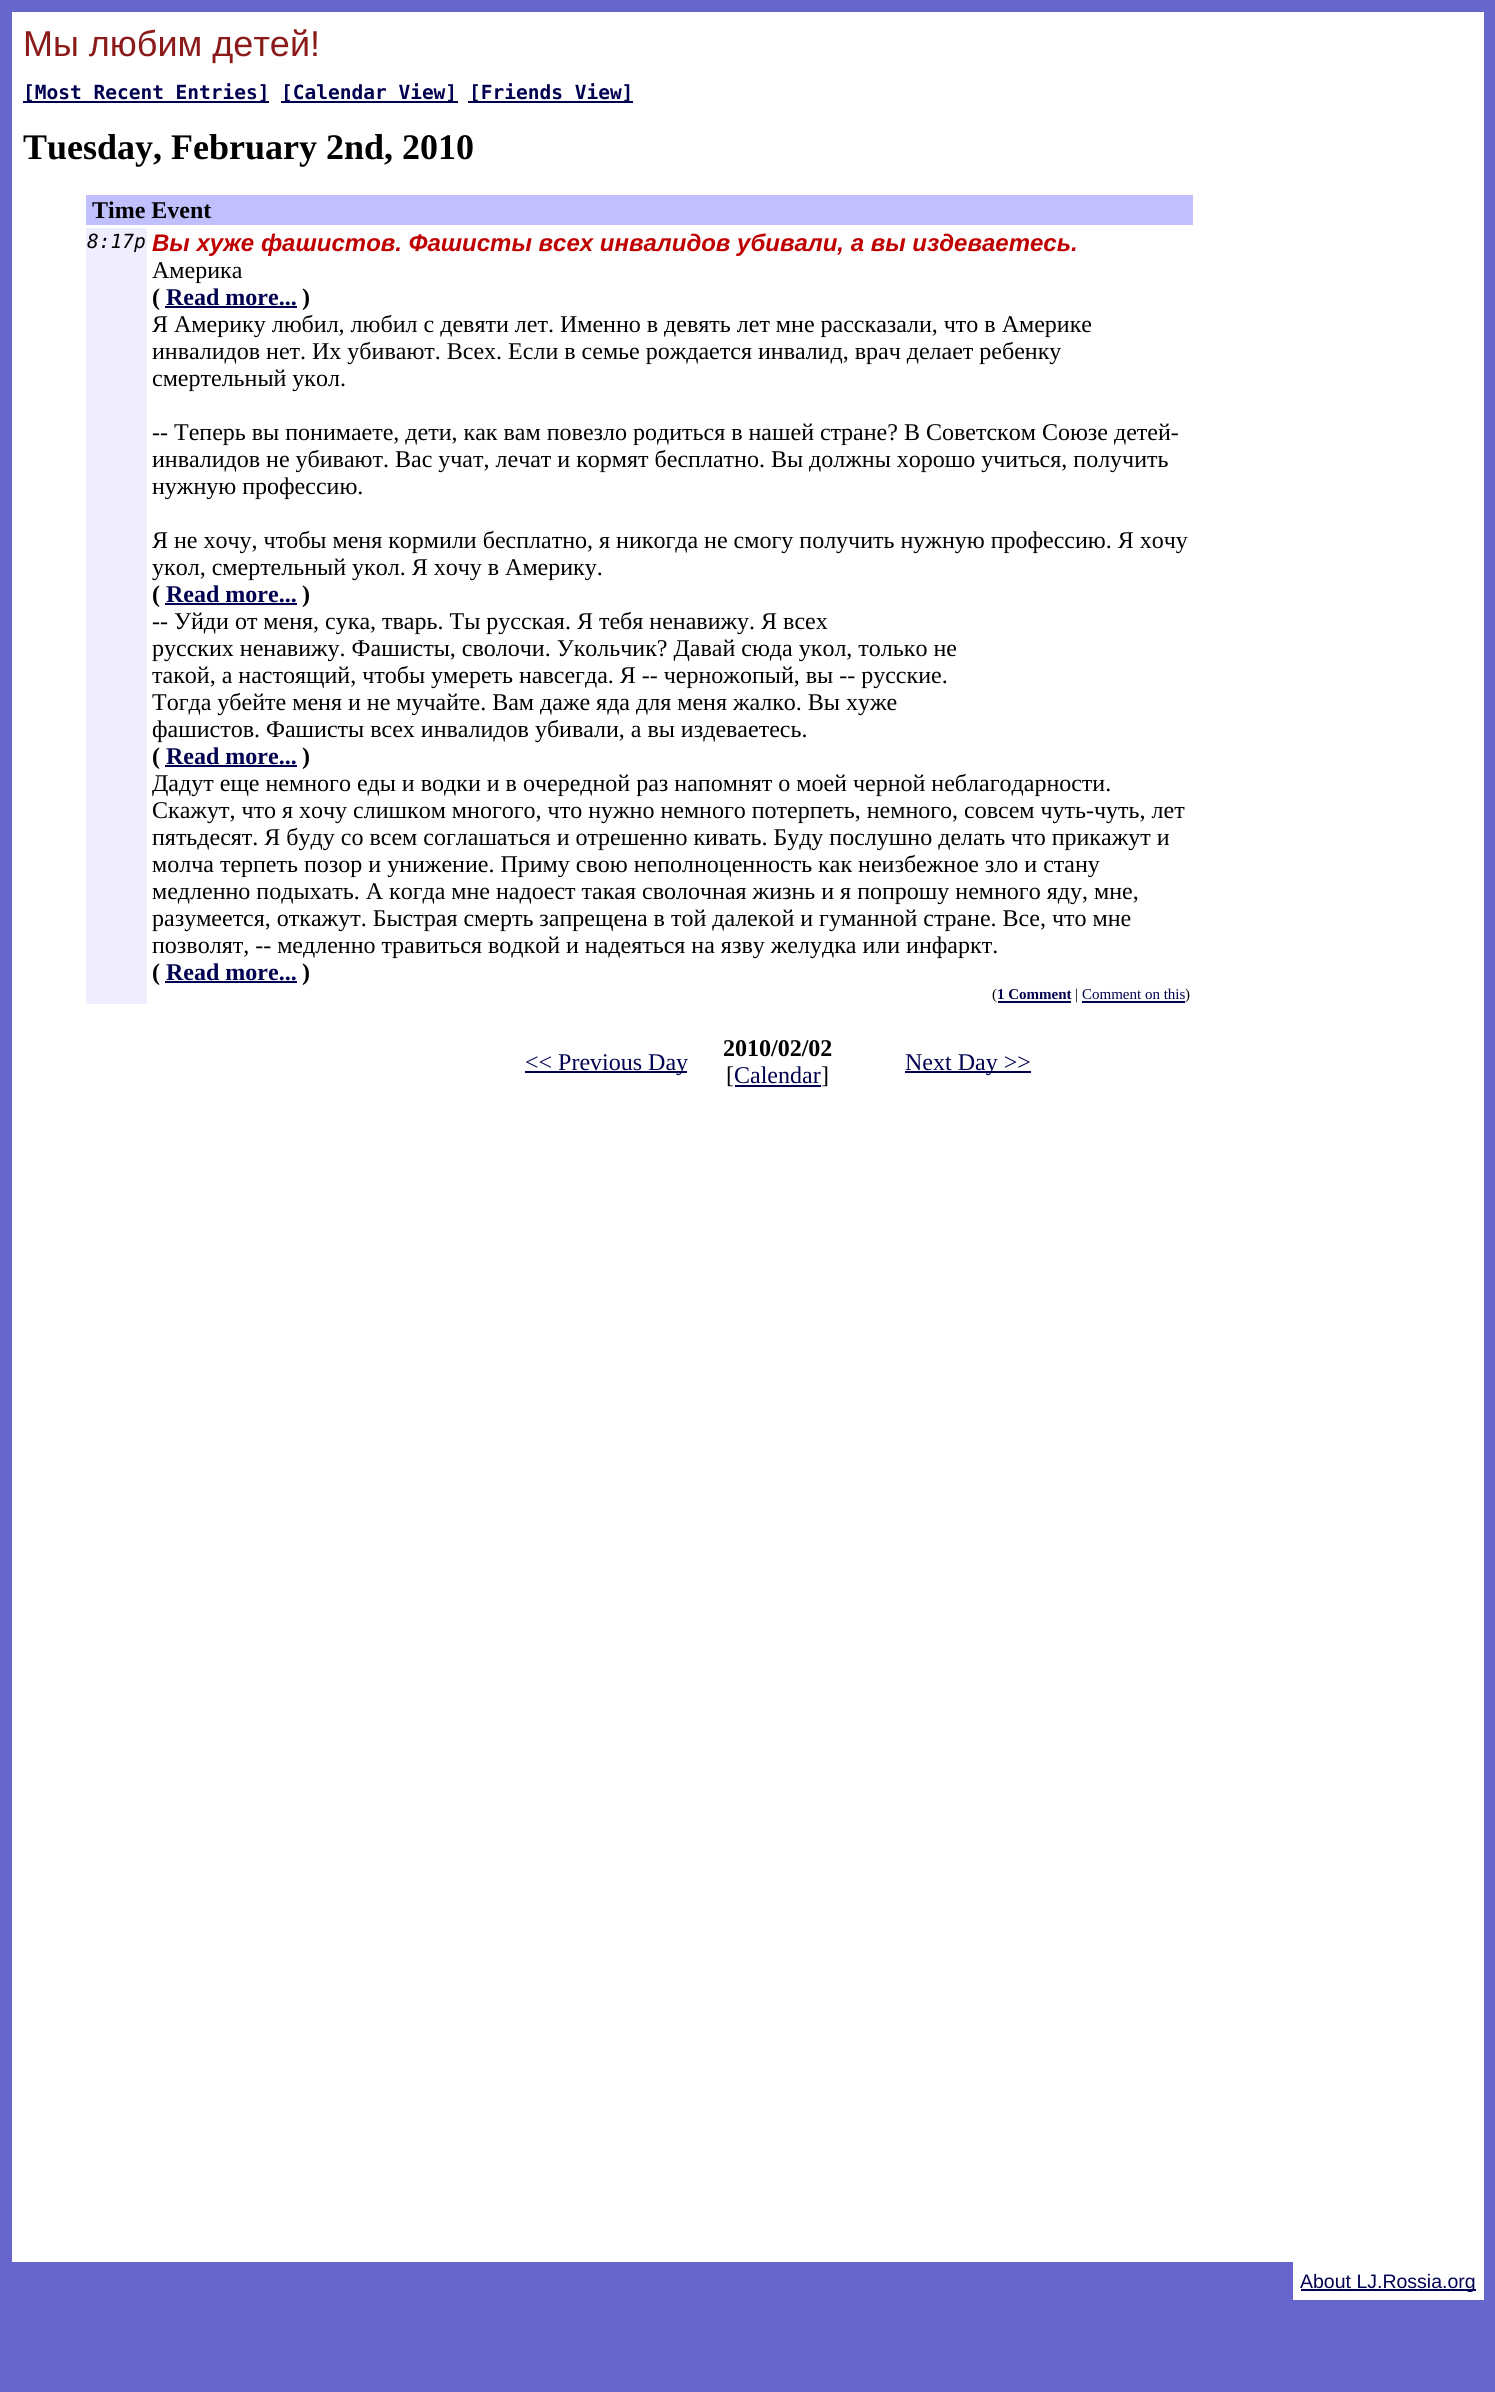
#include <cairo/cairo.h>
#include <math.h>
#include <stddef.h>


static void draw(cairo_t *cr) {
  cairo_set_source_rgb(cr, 102 / 255.0, 102 / 255.0, 204 / 255.0);
  cairo_paint(cr);
  cairo_set_source_rgb(cr, 1, 1, 1);
  cairo_rectangle(cr, 12, 12, 1472, 2250);
  cairo_fill(cr);
  cairo_set_source_rgb(cr, 0, 0, 80 / 255.0);
  cairo_rectangle(cr, 23, 101, 246, 2);
  cairo_fill(cr);
  cairo_rectangle(cr, 281, 101, 177, 2);
  cairo_fill(cr);
  cairo_rectangle(cr, 468, 101, 165, 2);
  cairo_fill(cr);
  cairo_set_source_rgb(cr, 192 / 255.0, 192 / 255.0, 1);
  cairo_rectangle(cr, 86, 195, 1107, 30);
  cairo_fill(cr);
  cairo_set_source_rgb(cr, 238 / 255.0, 238 / 255.0, 1);
  cairo_rectangle(cr, 86, 228, 61, 776);
  cairo_fill(cr);
  cairo_set_source_rgb(cr, 0, 0, 80 / 255.0);
  cairo_rectangle(cr, 165, 306, 132, 2);
  cairo_fill(cr);
  cairo_rectangle(cr, 165, 603, 132, 2);
  cairo_fill(cr);
  cairo_rectangle(cr, 165, 765, 132, 2);
  cairo_fill(cr);
  cairo_rectangle(cr, 165, 981, 132, 2);
  cairo_fill(cr);
  cairo_rectangle(cr, 998, 1001, 73, 2);
  cairo_fill(cr);
  cairo_rectangle(cr, 1082, 1001, 103, 2);
  cairo_fill(cr);
  cairo_rectangle(cr, 525, 1071, 162, 2);
  cairo_fill(cr);
  cairo_rectangle(cr, 735, 1085, 86, 2);
  cairo_fill(cr);
  cairo_rectangle(cr, 905, 1071, 126, 2);
  cairo_fill(cr);
  cairo_set_source_rgb(cr, 1, 1, 1);
  cairo_rectangle(cr, 1293, 2262, 191, 38);
  cairo_fill(cr);
  cairo_set_source_rgb(cr, 0, 0, 80 / 255.0);
  cairo_rectangle(cr, 1301, 2289, 175, 2);
  cairo_fill(cr);
  cairo_select_font_face(cr, "Liberation Sans", CAIRO_FONT_SLANT_NORMAL, CAIRO_FONT_WEIGHT_NORMAL);
  cairo_set_font_size(cr, 36);
  cairo_set_source_rgb(cr, 139 / 255.0, 26 / 255.0, 26 / 255.0);
  cairo_move_to(cr, 23, 56);
  cairo_show_text(cr, "Мы любим детей!");
  cairo_select_font_face(cr, "DejaVu Sans Mono", CAIRO_FONT_SLANT_NORMAL, CAIRO_FONT_WEIGHT_BOLD);
  cairo_set_font_size(cr, 19.5);
  cairo_set_source_rgb(cr, 0, 0, 80 / 255.0);
  cairo_move_to(cr, 23, 99);
  cairo_show_text(cr, "[Most Recent Entries]");
  cairo_move_to(cr, 281, 99);
  cairo_show_text(cr, "[Calendar View]");
  cairo_move_to(cr, 469, 99);
  cairo_show_text(cr, "[Friends View]");
  cairo_select_font_face(cr, "Liberation Serif", CAIRO_FONT_SLANT_NORMAL, CAIRO_FONT_WEIGHT_BOLD);
  cairo_set_font_size(cr, 36);
  cairo_set_source_rgb(cr, 0, 0, 0);
  cairo_move_to(cr, 23, 159);
  cairo_show_text(cr, "Tuesday, February 2nd, 2010");
  cairo_set_font_size(cr, 24);
  cairo_move_to(cr, 92, 218);
  cairo_show_text(cr, "Time Event");
  cairo_select_font_face(cr, "DejaVu Sans Mono", CAIRO_FONT_SLANT_ITALIC, CAIRO_FONT_WEIGHT_NORMAL);
  cairo_set_font_size(cr, 19.5);
  cairo_move_to(cr, 87, 248);
  cairo_show_text(cr, "8:17p");
  cairo_select_font_face(cr, "Liberation Sans", CAIRO_FONT_SLANT_ITALIC, CAIRO_FONT_WEIGHT_BOLD);
  cairo_set_font_size(cr, 24);
  cairo_set_source_rgb(cr, 192 / 255.0, 0, 0);
  cairo_move_to(cr, 152, 251);
  cairo_show_text(cr, "Вы хуже фашистов. Фашисты всех инвалидов убивали, а вы издеваетесь.");
  cairo_select_font_face(cr, "Liberation Serif", CAIRO_FONT_SLANT_NORMAL, CAIRO_FONT_WEIGHT_NORMAL);
  cairo_set_source_rgb(cr, 0, 0, 0);
  cairo_move_to(cr, 152, 278);
  cairo_show_text(cr, "Америка");
  cairo_select_font_face(cr, "Liberation Serif", CAIRO_FONT_SLANT_NORMAL, CAIRO_FONT_WEIGHT_BOLD);
  cairo_move_to(cr, 152, 305);
  cairo_show_text(cr, "(");
  cairo_set_source_rgb(cr, 0, 0, 80 / 255.0);
  cairo_move_to(cr, 166, 305);
  cairo_show_text(cr, "Read more...");
  cairo_set_source_rgb(cr, 0, 0, 0);
  cairo_move_to(cr, 302, 305);
  cairo_show_text(cr, ")");
  cairo_select_font_face(cr, "Liberation Serif", CAIRO_FONT_SLANT_NORMAL, CAIRO_FONT_WEIGHT_NORMAL);
  cairo_move_to(cr, 152, 332);
  cairo_show_text(cr, "Я Америку любил, любил с девяти лет. Именно в девять лет мне рассказали, что в Америке");
  cairo_move_to(cr, 152, 359);
  cairo_show_text(cr, "инвалидов нет. Их убивают. Всех. Если в семье рождается инвалид, врач делает ребенку");
  cairo_move_to(cr, 152, 386);
  cairo_show_text(cr, "смертельный укол.");
  cairo_move_to(cr, 152, 440);
  cairo_show_text(cr, "-- Теперь вы понимаете, дети, как вам повезло родиться в нашей стране? В Советском Союзе детей-");
  cairo_move_to(cr, 152, 467);
  cairo_show_text(cr, "инвалидов не убивают. Вас учат, лечат и кормят бесплатно. Вы должны хорошо учиться, получить");
  cairo_move_to(cr, 152, 494);
  cairo_show_text(cr, "нужную профессию.");
  cairo_move_to(cr, 152, 548);
  cairo_show_text(cr, "Я не хочу, чтобы меня кормили бесплатно, я никогда не смогу получить нужную профессию. Я хочу");
  cairo_move_to(cr, 152, 575);
  cairo_show_text(cr, "укол, смертельный укол. Я хочу в Америку.");
  cairo_select_font_face(cr, "Liberation Serif", CAIRO_FONT_SLANT_NORMAL, CAIRO_FONT_WEIGHT_BOLD);
  cairo_move_to(cr, 152, 602);
  cairo_show_text(cr, "(");
  cairo_set_source_rgb(cr, 0, 0, 80 / 255.0);
  cairo_move_to(cr, 166, 602);
  cairo_show_text(cr, "Read more...");
  cairo_set_source_rgb(cr, 0, 0, 0);
  cairo_move_to(cr, 302, 602);
  cairo_show_text(cr, ")");
  cairo_select_font_face(cr, "Liberation Serif", CAIRO_FONT_SLANT_NORMAL, CAIRO_FONT_WEIGHT_NORMAL);
  cairo_move_to(cr, 152, 629);
  cairo_show_text(cr, "-- Уйди от меня, сука, тварь. Ты русская. Я тебя ненавижу. Я всех");
  cairo_move_to(cr, 152, 656);
  cairo_show_text(cr, "русских ненавижу. Фашисты, сволочи. Укольчик? Давай сюда укол, только не");
  cairo_move_to(cr, 152, 683);
  cairo_show_text(cr, "такой, а настоящий, чтобы умереть навсегда. Я -- черножопый, вы -- русские.");
  cairo_move_to(cr, 152, 710);
  cairo_show_text(cr, "Тогда убейте меня и не мучайте. Вам даже яда для меня жалко. Вы хуже");
  cairo_move_to(cr, 152, 737);
  cairo_show_text(cr, "фашистов. Фашисты всех инвалидов убивали, а вы издеваетесь.");
  cairo_select_font_face(cr, "Liberation Serif", CAIRO_FONT_SLANT_NORMAL, CAIRO_FONT_WEIGHT_BOLD);
  cairo_move_to(cr, 152, 764);
  cairo_show_text(cr, "(");
  cairo_set_source_rgb(cr, 0, 0, 80 / 255.0);
  cairo_move_to(cr, 166, 764);
  cairo_show_text(cr, "Read more...");
  cairo_set_source_rgb(cr, 0, 0, 0);
  cairo_move_to(cr, 302, 764);
  cairo_show_text(cr, ")");
  cairo_select_font_face(cr, "Liberation Serif", CAIRO_FONT_SLANT_NORMAL, CAIRO_FONT_WEIGHT_NORMAL);
  cairo_move_to(cr, 152, 791);
  cairo_show_text(cr, "Дадут еще немного еды и водки и в очередной раз напомнят о моей черной неблагодарности.");
  cairo_move_to(cr, 152, 818);
  cairo_show_text(cr, "Скажут, что я хочу слишком многого, что нужно немного потерпеть, немного, совсем чуть-чуть, лет");
  cairo_move_to(cr, 152, 845);
  cairo_show_text(cr, "пятьдесят. Я буду со всем соглашаться и отрешенно кивать. Буду послушно делать что прикажут и");
  cairo_move_to(cr, 152, 872);
  cairo_show_text(cr, "молча терпеть позор и унижение. Приму свою неполноценность как неизбежное зло и стану");
  cairo_move_to(cr, 152, 899);
  cairo_show_text(cr, "медленно подыхать. А когда мне надоест такая сволочная жизнь и я попрошу немного яду, мне,");
  cairo_move_to(cr, 152, 926);
  cairo_show_text(cr, "разумеется, откажут. Быстрая смерть запрещена в той далекой и гуманной стране. Все, что мне");
  cairo_move_to(cr, 152, 953);
  cairo_show_text(cr, "позволят, -- медленно травиться водкой и надеяться на язву желудка или инфаркт.");
  cairo_select_font_face(cr, "Liberation Serif", CAIRO_FONT_SLANT_NORMAL, CAIRO_FONT_WEIGHT_BOLD);
  cairo_move_to(cr, 152, 980);
  cairo_show_text(cr, "(");
  cairo_set_source_rgb(cr, 0, 0, 80 / 255.0);
  cairo_move_to(cr, 166, 980);
  cairo_show_text(cr, "Read more...");
  cairo_set_source_rgb(cr, 0, 0, 0);
  cairo_move_to(cr, 302, 980);
  cairo_show_text(cr, ")");
  cairo_select_font_face(cr, "Liberation Serif", CAIRO_FONT_SLANT_NORMAL, CAIRO_FONT_WEIGHT_NORMAL);
  cairo_set_font_size(cr, 15);
  cairo_move_to(cr, 992, 999);
  cairo_show_text(cr, "(");
  cairo_select_font_face(cr, "Liberation Serif", CAIRO_FONT_SLANT_NORMAL, CAIRO_FONT_WEIGHT_BOLD);
  cairo_set_source_rgb(cr, 0, 0, 80 / 255.0);
  cairo_move_to(cr, 997, 999);
  cairo_show_text(cr, "1 Comment");
  cairo_select_font_face(cr, "Liberation Serif", CAIRO_FONT_SLANT_NORMAL, CAIRO_FONT_WEIGHT_NORMAL);
  cairo_set_source_rgb(cr, 0, 0, 0);
  cairo_move_to(cr, 1075, 999);
  cairo_show_text(cr, "|");
  cairo_set_source_rgb(cr, 0, 0, 80 / 255.0);
  cairo_move_to(cr, 1082, 999);
  cairo_show_text(cr, "Comment on this");
  cairo_set_source_rgb(cr, 0, 0, 0);
  cairo_move_to(cr, 1185, 999);
  cairo_show_text(cr, ")");
  cairo_set_font_size(cr, 24);
  cairo_set_source_rgb(cr, 0, 0, 80 / 255.0);
  cairo_move_to(cr, 525, 1070);
  cairo_show_text(cr, "<< Previous Day");
  cairo_select_font_face(cr, "Liberation Serif", CAIRO_FONT_SLANT_NORMAL, CAIRO_FONT_WEIGHT_BOLD);
  cairo_set_source_rgb(cr, 0, 0, 0);
  cairo_move_to(cr, 723, 1056);
  cairo_show_text(cr, "2010/02/02");
  cairo_select_font_face(cr, "Liberation Serif", CAIRO_FONT_SLANT_NORMAL, CAIRO_FONT_WEIGHT_NORMAL);
  cairo_move_to(cr, 726, 1083);
  cairo_show_text(cr, "[");
  cairo_set_source_rgb(cr, 0, 0, 80 / 255.0);
  cairo_move_to(cr, 734, 1083);
  cairo_show_text(cr, "Calendar");
  cairo_set_source_rgb(cr, 0, 0, 0);
  cairo_move_to(cr, 821, 1083);
  cairo_show_text(cr, "]");
  cairo_set_source_rgb(cr, 0, 0, 80 / 255.0);
  cairo_move_to(cr, 905, 1070);
  cairo_show_text(cr, "Next Day >>");
  cairo_select_font_face(cr, "Liberation Sans", CAIRO_FONT_SLANT_NORMAL, CAIRO_FONT_WEIGHT_NORMAL);
  cairo_set_font_size(cr, 19.5);
  cairo_move_to(cr, 1300, 2288);
  cairo_show_text(cr, "About LJ.Rossia.org");
}

int main(void) {
  cairo_surface_t *surface = cairo_image_surface_create(CAIRO_FORMAT_RGB24, 1495, 2392);
  cairo_t *cr = cairo_create(surface);
  cairo_font_options_t *options = cairo_font_options_create();
  cairo_font_options_set_hint_metrics(options, CAIRO_HINT_METRICS_OFF);
  cairo_font_options_set_hint_style(options, CAIRO_HINT_STYLE_NONE);
  cairo_set_font_options(cr, options);
  cairo_set_miter_limit(cr, 4);
  draw(cr);
  cairo_surface_write_to_png(surface, "out.png");
  cairo_font_options_destroy(options);
  cairo_destroy(cr);
  cairo_surface_destroy(surface);
  return 0;
}
